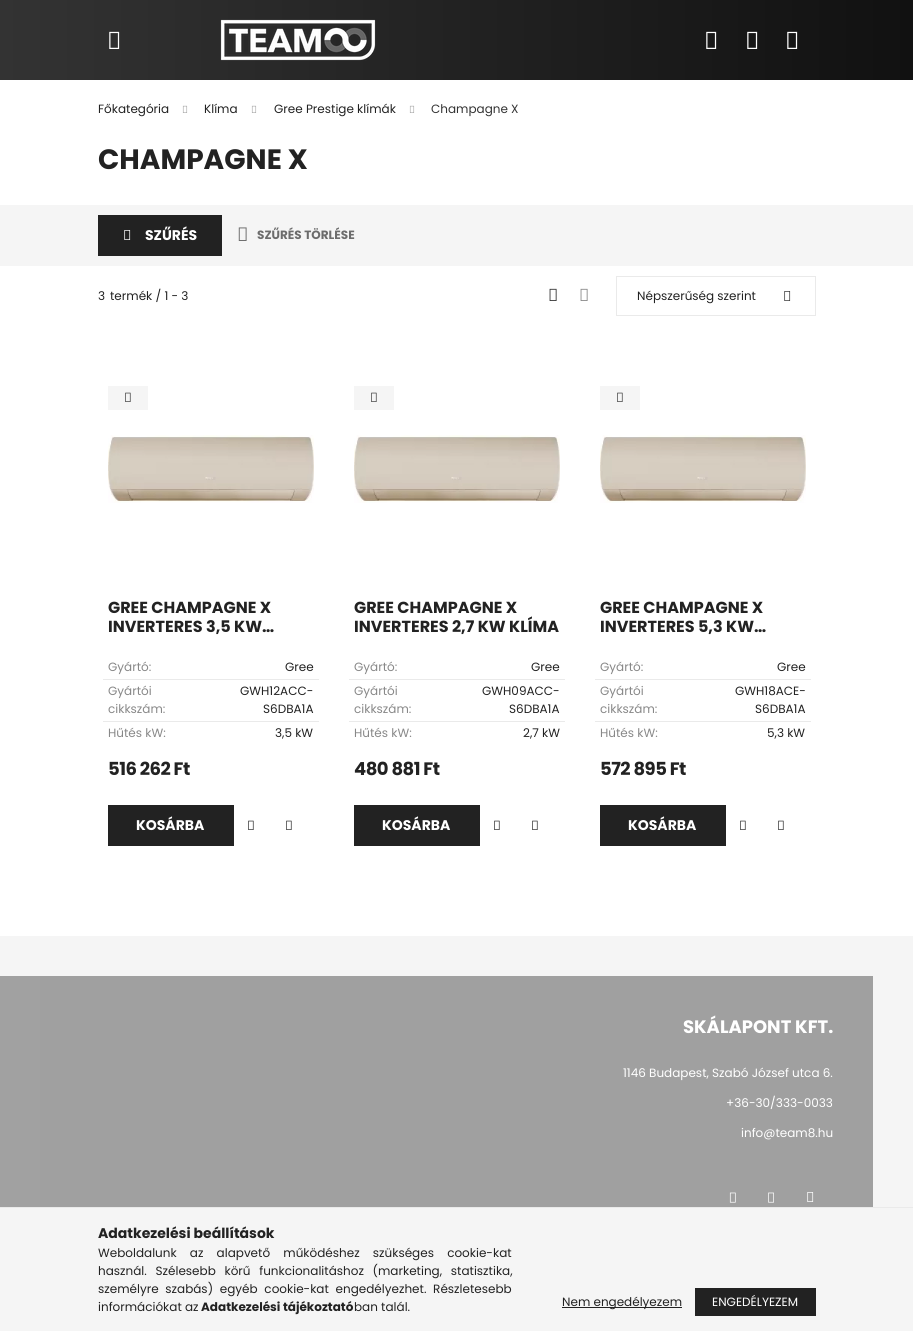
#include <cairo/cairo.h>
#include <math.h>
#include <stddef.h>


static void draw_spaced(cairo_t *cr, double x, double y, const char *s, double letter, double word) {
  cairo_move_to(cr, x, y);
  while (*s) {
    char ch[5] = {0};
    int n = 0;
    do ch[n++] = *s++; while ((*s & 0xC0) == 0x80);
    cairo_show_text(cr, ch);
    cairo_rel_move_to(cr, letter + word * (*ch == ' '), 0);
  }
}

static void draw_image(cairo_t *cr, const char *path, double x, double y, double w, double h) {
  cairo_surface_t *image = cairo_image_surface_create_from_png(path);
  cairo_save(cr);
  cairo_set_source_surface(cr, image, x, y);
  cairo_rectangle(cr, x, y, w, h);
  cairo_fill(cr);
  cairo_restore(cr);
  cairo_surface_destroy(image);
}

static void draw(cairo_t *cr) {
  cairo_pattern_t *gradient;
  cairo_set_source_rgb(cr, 1, 1, 1);
  cairo_paint(cr);
  gradient = cairo_pattern_create_linear(0, 40, 913, 40);
  cairo_pattern_add_color_stop_rgba(gradient, 0, 51 / 255.0, 51 / 255.0, 51 / 255.0, 1);
  cairo_pattern_add_color_stop_rgba(gradient, 1, 17 / 255.0, 17 / 255.0, 17 / 255.0, 1);
  cairo_set_source(cr, gradient);
  cairo_pattern_destroy(gradient);
  cairo_rectangle(cr, 0, 0, 913, 80);
  cairo_fill(cr);
  draw_image(cr, "images/1.png", 109, 31, 11, 18);
  draw_image(cr, "images/2.png", 220, 19, 156, 42);
  draw_image(cr, "images/3.png", 706, 31, 11, 18);
  draw_image(cr, "images/4.png", 747, 31, 11, 18);
  draw_image(cr, "images/5.png", 787, 31, 11, 18);
  draw_image(cr, "images/6.png", 182, 105, 6, 8);
  draw_image(cr, "images/6.png", 251, 105, 6, 8);
  draw_image(cr, "images/6.png", 409, 105, 6, 8);
  cairo_set_source_rgb(cr, 245 / 255.0, 245 / 255.0, 245 / 255.0);
  cairo_rectangle(cr, 0, 205, 913, 61);
  cairo_fill(cr);
  gradient = cairo_pattern_create_linear(-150, 236, 222, 236);
  cairo_pattern_add_color_stop_rgba(gradient, 0, 51 / 255.0, 51 / 255.0, 51 / 255.0, 1);
  cairo_pattern_add_color_stop_rgba(gradient, 0.33, 17 / 255.0, 17 / 255.0, 17 / 255.0, 1);
  cairo_pattern_add_color_stop_rgba(gradient, 0.67, 34 / 255.0, 34 / 255.0, 34 / 255.0, 1);
  cairo_pattern_add_color_stop_rgba(gradient, 1, 34 / 255.0, 34 / 255.0, 34 / 255.0, 1);
  cairo_set_source(cr, gradient);
  cairo_pattern_destroy(gradient);
  cairo_rectangle(cr, 98, 215, 124, 41);
  cairo_fill(cr);
  draw_image(cr, "images/7.png", 124, 230, 7, 10);
  draw_image(cr, "images/8.png", 238, 227, 9, 14);
  draw_image(cr, "images/9.png", 549, 288, 8, 13);
  draw_image(cr, "images/10.png", 580, 288, 8, 13);
  cairo_rectangle(cr, 616.5, 276.5, 199, 39);
  cairo_set_source_rgb(cr, 234 / 255.0, 234 / 255.0, 234 / 255.0);
  cairo_set_line_width(cr, 1);
  cairo_stroke(cr);
  draw_image(cr, "images/11.png", 784, 291, 7, 10);
  cairo_set_source_rgb(cr, 245 / 255.0, 245 / 255.0, 245 / 255.0);
  cairo_rectangle(cr, 108, 386, 40, 24);
  cairo_fill(cr);
  draw_image(cr, "images/12.png", 125, 392, 6, 10);
  draw_image(cr, "images/13.png", 108, 435, 206, 68);
  cairo_set_source_rgb(cr, 234 / 255.0, 234 / 255.0, 234 / 255.0);
  cairo_rectangle(cr, 103, 679, 216, 1);
  cairo_fill(cr);
  cairo_rectangle(cr, 103, 721, 216, 1);
  cairo_fill(cr);
  gradient = cairo_pattern_create_linear(-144, 826, 234, 826);
  cairo_pattern_add_color_stop_rgba(gradient, 0, 51 / 255.0, 51 / 255.0, 51 / 255.0, 1);
  cairo_pattern_add_color_stop_rgba(gradient, 0.33, 17 / 255.0, 17 / 255.0, 17 / 255.0, 1);
  cairo_pattern_add_color_stop_rgba(gradient, 0.67, 34 / 255.0, 34 / 255.0, 34 / 255.0, 1);
  cairo_pattern_add_color_stop_rgba(gradient, 1, 34 / 255.0, 34 / 255.0, 34 / 255.0, 1);
  cairo_set_source(cr, gradient);
  cairo_pattern_destroy(gradient);
  cairo_rectangle(cr, 108, 805, 126, 41);
  cairo_fill(cr);
  draw_image(cr, "images/14.png", 248, 820, 6, 10);
  draw_image(cr, "images/14.png", 286, 820, 6, 10);
  cairo_set_source_rgb(cr, 245 / 255.0, 245 / 255.0, 245 / 255.0);
  cairo_rectangle(cr, 354, 386, 40, 24);
  cairo_fill(cr);
  draw_image(cr, "images/12.png", 371, 392, 6, 10);
  draw_image(cr, "images/15.png", 354, 435, 206, 68);
  cairo_set_source_rgb(cr, 234 / 255.0, 234 / 255.0, 234 / 255.0);
  cairo_rectangle(cr, 349, 679, 216, 1);
  cairo_fill(cr);
  cairo_rectangle(cr, 349, 721, 216, 1);
  cairo_fill(cr);
  gradient = cairo_pattern_create_linear(102, 826, 480, 826);
  cairo_pattern_add_color_stop_rgba(gradient, 0, 51 / 255.0, 51 / 255.0, 51 / 255.0, 1);
  cairo_pattern_add_color_stop_rgba(gradient, 0.33, 17 / 255.0, 17 / 255.0, 17 / 255.0, 1);
  cairo_pattern_add_color_stop_rgba(gradient, 0.67, 34 / 255.0, 34 / 255.0, 34 / 255.0, 1);
  cairo_pattern_add_color_stop_rgba(gradient, 1, 34 / 255.0, 34 / 255.0, 34 / 255.0, 1);
  cairo_set_source(cr, gradient);
  cairo_pattern_destroy(gradient);
  cairo_rectangle(cr, 354, 805, 126, 41);
  cairo_fill(cr);
  draw_image(cr, "images/14.png", 494, 820, 6, 10);
  draw_image(cr, "images/14.png", 532, 820, 6, 10);
  cairo_set_source_rgb(cr, 245 / 255.0, 245 / 255.0, 245 / 255.0);
  cairo_rectangle(cr, 600, 386, 40, 24);
  cairo_fill(cr);
  draw_image(cr, "images/12.png", 617, 392, 6, 10);
  draw_image(cr, "images/15.png", 600, 435, 206, 68);
  cairo_set_source_rgb(cr, 234 / 255.0, 234 / 255.0, 234 / 255.0);
  cairo_rectangle(cr, 595, 679, 216, 1);
  cairo_fill(cr);
  cairo_rectangle(cr, 595, 721, 216, 1);
  cairo_fill(cr);
  gradient = cairo_pattern_create_linear(348, 826, 726, 826);
  cairo_pattern_add_color_stop_rgba(gradient, 0, 51 / 255.0, 51 / 255.0, 51 / 255.0, 1);
  cairo_pattern_add_color_stop_rgba(gradient, 0.33, 17 / 255.0, 17 / 255.0, 17 / 255.0, 1);
  cairo_pattern_add_color_stop_rgba(gradient, 0.67, 34 / 255.0, 34 / 255.0, 34 / 255.0, 1);
  cairo_pattern_add_color_stop_rgba(gradient, 1, 34 / 255.0, 34 / 255.0, 34 / 255.0, 1);
  cairo_set_source(cr, gradient);
  cairo_pattern_destroy(gradient);
  cairo_rectangle(cr, 600, 805, 126, 41);
  cairo_fill(cr);
  draw_image(cr, "images/14.png", 740, 820, 6, 10);
  draw_image(cr, "images/14.png", 778, 820, 6, 10);
  cairo_set_source_rgb(cr, 245 / 255.0, 245 / 255.0, 245 / 255.0);
  cairo_rectangle(cr, 0, 936, 913, 271);
  cairo_fill(cr);
  cairo_set_source_rgb(cr, 160 / 255.0, 160 / 255.0, 160 / 255.0);
  cairo_rectangle(cr, 40, 976, 833, 231);
  cairo_fill(cr);
  cairo_set_source_rgb(cr, 161 / 255.0, 161 / 255.0, 161 / 255.0);
  cairo_rectangle(cr, 0, 976, 40, 231);
  cairo_fill(cr);
  draw_image(cr, "images/16.png", 729, 1192, 7, 11);
  draw_image(cr, "images/17.png", 768, 1192, 6, 11);
  draw_image(cr, "images/18.png", 807, 1192, 7, 10);
  cairo_set_source_rgb(cr, 245 / 255.0, 245 / 255.0, 245 / 255.0);
  cairo_rectangle(cr, 0, 1208, 913, 123);
  cairo_fill(cr);
  cairo_set_source_rgb(cr, 234 / 255.0, 234 / 255.0, 234 / 255.0);
  cairo_rectangle(cr, 0, 1207, 913, 1);
  cairo_fill(cr);
  cairo_set_source_rgb(cr, 34 / 255.0, 34 / 255.0, 34 / 255.0);
  cairo_rectangle(cr, 562, 1307, 120, 1);
  cairo_fill(cr);
  gradient = cairo_pattern_create_linear(453, 1302, 816, 1302);
  cairo_pattern_add_color_stop_rgba(gradient, 0, 51 / 255.0, 51 / 255.0, 51 / 255.0, 1);
  cairo_pattern_add_color_stop_rgba(gradient, 0.33, 17 / 255.0, 17 / 255.0, 17 / 255.0, 1);
  cairo_pattern_add_color_stop_rgba(gradient, 0.67, 34 / 255.0, 34 / 255.0, 34 / 255.0, 1);
  cairo_pattern_add_color_stop_rgba(gradient, 1, 34 / 255.0, 34 / 255.0, 34 / 255.0, 1);
  cairo_set_source(cr, gradient);
  cairo_pattern_destroy(gradient);
  cairo_rectangle(cr, 695, 1288, 121, 28);
  cairo_fill(cr);
  cairo_select_font_face(cr, "Poppins", CAIRO_FONT_SLANT_NORMAL, CAIRO_FONT_WEIGHT_NORMAL);
  cairo_set_font_size(cr, 12);
  cairo_set_source_rgb(cr, 34 / 255.0, 34 / 255.0, 34 / 255.0);
  cairo_move_to(cr, 98, 113);
  cairo_show_text(cr, "Főkategória");
  cairo_move_to(cr, 204, 113);
  cairo_show_text(cr, "Klíma");
  cairo_move_to(cr, 274, 113);
  cairo_show_text(cr, "Gree Prestige klímák");
  cairo_set_source_rgb(cr, 51 / 255.0, 51 / 255.0, 51 / 255.0);
  cairo_move_to(cr, 431, 113);
  cairo_show_text(cr, "Champagne X");
  cairo_select_font_face(cr, "Poppins", CAIRO_FONT_SLANT_NORMAL, CAIRO_FONT_WEIGHT_BOLD);
  cairo_set_font_size(cr, 28);
  cairo_set_source_rgb(cr, 34 / 255.0, 34 / 255.0, 34 / 255.0);
  cairo_move_to(cr, 98, 169);
  cairo_show_text(cr, "CHAMPAGNE X");
  cairo_set_font_size(cr, 14);
  cairo_set_source_rgb(cr, 1, 1, 1);
  cairo_move_to(cr, 145, 240);
  cairo_show_text(cr, "SZŰRÉS");
  cairo_set_font_size(cr, 12);
  cairo_set_source_rgb(cr, 108 / 255.0, 108 / 255.0, 108 / 255.0);
  cairo_move_to(cr, 257, 239);
  cairo_show_text(cr, "SZŰRÉS TÖRLÉSE");
  cairo_select_font_face(cr, "Poppins", CAIRO_FONT_SLANT_NORMAL, CAIRO_FONT_WEIGHT_NORMAL);
  cairo_set_source_rgb(cr, 34 / 255.0, 34 / 255.0, 34 / 255.0);
  cairo_move_to(cr, 98, 300);
  cairo_show_text(cr, "3");
  cairo_move_to(cr, 110, 300);
  cairo_show_text(cr, "termék / 1 - 3");
  cairo_move_to(cr, 637, 300);
  cairo_show_text(cr, "Népszerűség szerint");
  cairo_select_font_face(cr, "Poppins", CAIRO_FONT_SLANT_NORMAL, CAIRO_FONT_WEIGHT_BOLD);
  cairo_set_font_size(cr, 16);
  cairo_move_to(cr, 108, 613);
  cairo_show_text(cr, "GREE CHAMPAGNE X");
  cairo_move_to(cr, 108, 632);
  cairo_show_text(cr, "INVERTERES 3,5 KW…");
  cairo_select_font_face(cr, "Poppins", CAIRO_FONT_SLANT_NORMAL, CAIRO_FONT_WEIGHT_NORMAL);
  cairo_set_font_size(cr, 12);
  cairo_set_source_rgb(cr, 136 / 255.0, 136 / 255.0, 136 / 255.0);
  cairo_move_to(cr, 108, 671);
  cairo_show_text(cr, "Gyártó:");
  cairo_set_source_rgb(cr, 34 / 255.0, 34 / 255.0, 34 / 255.0);
  cairo_move_to(cr, 285, 671);
  cairo_show_text(cr, "Gree");
  cairo_set_source_rgb(cr, 136 / 255.0, 136 / 255.0, 136 / 255.0);
  cairo_move_to(cr, 108, 695);
  cairo_show_text(cr, "Gyártói");
  cairo_move_to(cr, 108, 713);
  cairo_show_text(cr, "cikkszám:");
  cairo_set_source_rgb(cr, 34 / 255.0, 34 / 255.0, 34 / 255.0);
  cairo_move_to(cr, 240, 695);
  cairo_show_text(cr, "GWH12ACC-");
  cairo_move_to(cr, 263, 713);
  cairo_show_text(cr, "S6DBA1A");
  cairo_set_source_rgb(cr, 136 / 255.0, 136 / 255.0, 136 / 255.0);
  cairo_move_to(cr, 108, 737);
  cairo_show_text(cr, "Hűtés kW:");
  cairo_set_source_rgb(cr, 34 / 255.0, 34 / 255.0, 34 / 255.0);
  cairo_move_to(cr, 275, 737);
  cairo_show_text(cr, "3,5 kW");
  cairo_select_font_face(cr, "Poppins", CAIRO_FONT_SLANT_NORMAL, CAIRO_FONT_WEIGHT_BOLD);
  cairo_set_font_size(cr, 18);
  draw_spaced(cr, 108, 775, "516 262 Ft", -0.5, 0);
  cairo_set_font_size(cr, 14);
  cairo_set_source_rgb(cr, 1, 1, 1);
  cairo_move_to(cr, 136, 830);
  cairo_show_text(cr, "KOSÁRBA");
  cairo_set_font_size(cr, 16);
  cairo_set_source_rgb(cr, 34 / 255.0, 34 / 255.0, 34 / 255.0);
  cairo_move_to(cr, 354, 613);
  cairo_show_text(cr, "GREE CHAMPAGNE X");
  cairo_move_to(cr, 354, 632);
  cairo_show_text(cr, "INVERTERES 2,7 KW KLÍMA");
  cairo_select_font_face(cr, "Poppins", CAIRO_FONT_SLANT_NORMAL, CAIRO_FONT_WEIGHT_NORMAL);
  cairo_set_font_size(cr, 12);
  cairo_set_source_rgb(cr, 136 / 255.0, 136 / 255.0, 136 / 255.0);
  cairo_move_to(cr, 354, 671);
  cairo_show_text(cr, "Gyártó:");
  cairo_set_source_rgb(cr, 34 / 255.0, 34 / 255.0, 34 / 255.0);
  cairo_move_to(cr, 531, 671);
  cairo_show_text(cr, "Gree");
  cairo_set_source_rgb(cr, 136 / 255.0, 136 / 255.0, 136 / 255.0);
  cairo_move_to(cr, 354, 695);
  cairo_show_text(cr, "Gyártói");
  cairo_move_to(cr, 354, 713);
  cairo_show_text(cr, "cikkszám:");
  cairo_set_source_rgb(cr, 34 / 255.0, 34 / 255.0, 34 / 255.0);
  cairo_move_to(cr, 482, 695);
  cairo_show_text(cr, "GWH09ACC-");
  cairo_move_to(cr, 509, 713);
  cairo_show_text(cr, "S6DBA1A");
  cairo_set_source_rgb(cr, 136 / 255.0, 136 / 255.0, 136 / 255.0);
  cairo_move_to(cr, 354, 737);
  cairo_show_text(cr, "Hűtés kW:");
  cairo_set_source_rgb(cr, 34 / 255.0, 34 / 255.0, 34 / 255.0);
  cairo_move_to(cr, 523, 737);
  cairo_show_text(cr, "2,7 kW");
  cairo_select_font_face(cr, "Poppins", CAIRO_FONT_SLANT_NORMAL, CAIRO_FONT_WEIGHT_BOLD);
  cairo_set_font_size(cr, 18);
  draw_spaced(cr, 354, 775, "480 881 Ft", -0.5, 0);
  cairo_set_font_size(cr, 14);
  cairo_set_source_rgb(cr, 1, 1, 1);
  cairo_move_to(cr, 382, 830);
  cairo_show_text(cr, "KOSÁRBA");
  cairo_set_font_size(cr, 16);
  cairo_set_source_rgb(cr, 34 / 255.0, 34 / 255.0, 34 / 255.0);
  cairo_move_to(cr, 600, 613);
  cairo_show_text(cr, "GREE CHAMPAGNE X");
  cairo_move_to(cr, 600, 632);
  cairo_show_text(cr, "INVERTERES 5,3 KW…");
  cairo_select_font_face(cr, "Poppins", CAIRO_FONT_SLANT_NORMAL, CAIRO_FONT_WEIGHT_NORMAL);
  cairo_set_font_size(cr, 12);
  cairo_set_source_rgb(cr, 136 / 255.0, 136 / 255.0, 136 / 255.0);
  cairo_move_to(cr, 600, 671);
  cairo_show_text(cr, "Gyártó:");
  cairo_set_source_rgb(cr, 34 / 255.0, 34 / 255.0, 34 / 255.0);
  cairo_move_to(cr, 777, 671);
  cairo_show_text(cr, "Gree");
  cairo_set_source_rgb(cr, 136 / 255.0, 136 / 255.0, 136 / 255.0);
  cairo_move_to(cr, 600, 695);
  cairo_show_text(cr, "Gyártói");
  cairo_move_to(cr, 600, 713);
  cairo_show_text(cr, "cikkszám:");
  cairo_set_source_rgb(cr, 34 / 255.0, 34 / 255.0, 34 / 255.0);
  cairo_move_to(cr, 735, 695);
  cairo_show_text(cr, "GWH18ACE-");
  cairo_move_to(cr, 755, 713);
  cairo_show_text(cr, "S6DBA1A");
  cairo_set_source_rgb(cr, 136 / 255.0, 136 / 255.0, 136 / 255.0);
  cairo_move_to(cr, 600, 737);
  cairo_show_text(cr, "Hűtés kW:");
  cairo_set_source_rgb(cr, 34 / 255.0, 34 / 255.0, 34 / 255.0);
  cairo_move_to(cr, 767, 737);
  cairo_show_text(cr, "5,3 kW");
  cairo_select_font_face(cr, "Poppins", CAIRO_FONT_SLANT_NORMAL, CAIRO_FONT_WEIGHT_BOLD);
  cairo_set_font_size(cr, 18);
  draw_spaced(cr, 600, 775, "572 895 Ft", -0.5, 0);
  cairo_set_font_size(cr, 14);
  cairo_set_source_rgb(cr, 1, 1, 1);
  cairo_move_to(cr, 628, 830);
  cairo_show_text(cr, "KOSÁRBA");
  cairo_set_font_size(cr, 18);
  cairo_move_to(cr, 683, 1033);
  cairo_show_text(cr, "SKÁLAPONT KFT.");
  cairo_select_font_face(cr, "Poppins", CAIRO_FONT_SLANT_NORMAL, CAIRO_FONT_WEIGHT_NORMAL);
  cairo_set_font_size(cr, 12);
  cairo_move_to(cr, 623, 1077);
  cairo_show_text(cr, "1146 Budapest, Szabó József utca 6.");
  cairo_move_to(cr, 726, 1107);
  cairo_show_text(cr, "+36-30/333-0033");
  cairo_move_to(cr, 741, 1137);
  cairo_show_text(cr, "info@team8.hu");
  cairo_select_font_face(cr, "Poppins", CAIRO_FONT_SLANT_NORMAL, CAIRO_FONT_WEIGHT_BOLD);
  cairo_set_font_size(cr, 14);
  cairo_set_source_rgb(cr, 34 / 255.0, 34 / 255.0, 34 / 255.0);
  cairo_move_to(cr, 98, 1238);
  cairo_show_text(cr, "Adatkezelési beállítások");
  cairo_select_font_face(cr, "Poppins", CAIRO_FONT_SLANT_NORMAL, CAIRO_FONT_WEIGHT_NORMAL);
  cairo_set_font_size(cr, 12);
  draw_spaced(cr, 98, 1257, "Weboldalunk az alapvető működéshez szükséges cookie-kat", 0, 10);
  draw_spaced(cr, 98, 1275, "használ. Szélesebb körű funkcionalitáshoz (marketing, statisztika,", 0, 5.5);
  draw_spaced(cr, 98, 1293, "személyre szabás) egyéb cookie-kat engedélyezhet. Részletesebb", 0, 3.5);
  cairo_move_to(cr, 98, 1311);
  cairo_show_text(cr, "információkat az");
  cairo_select_font_face(cr, "Poppins", CAIRO_FONT_SLANT_NORMAL, CAIRO_FONT_WEIGHT_BOLD);
  cairo_move_to(cr, 201, 1311);
  cairo_show_text(cr, "Adatkezelési tájékoztató");
  cairo_select_font_face(cr, "Poppins", CAIRO_FONT_SLANT_NORMAL, CAIRO_FONT_WEIGHT_NORMAL);
  cairo_move_to(cr, 354, 1311);
  cairo_show_text(cr, "ban talál.");
  cairo_move_to(cr, 562, 1306);
  cairo_show_text(cr, "Nem engedélyezem");
  cairo_set_source_rgb(cr, 1, 1, 1);
  cairo_move_to(cr, 712, 1306);
  cairo_show_text(cr, "ENGEDÉLYEZEM");
}

int main(void) {
  cairo_surface_t *surface = cairo_image_surface_create(CAIRO_FORMAT_RGB24, 913, 1331);
  cairo_t *cr = cairo_create(surface);
  cairo_font_options_t *options = cairo_font_options_create();
  cairo_font_options_set_hint_metrics(options, CAIRO_HINT_METRICS_OFF);
  cairo_font_options_set_hint_style(options, CAIRO_HINT_STYLE_NONE);
  cairo_set_font_options(cr, options);
  cairo_set_miter_limit(cr, 4);
  draw(cr);
  cairo_surface_write_to_png(surface, "out.png");
  cairo_font_options_destroy(options);
  cairo_destroy(cr);
  cairo_surface_destroy(surface);
  return 0;
}
